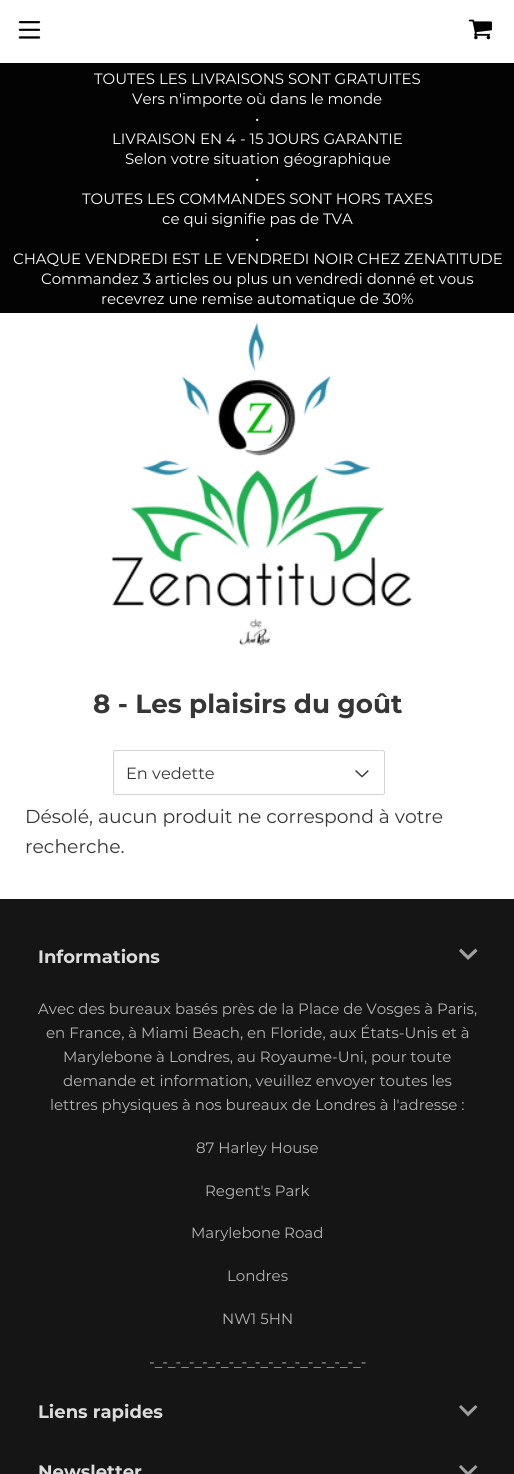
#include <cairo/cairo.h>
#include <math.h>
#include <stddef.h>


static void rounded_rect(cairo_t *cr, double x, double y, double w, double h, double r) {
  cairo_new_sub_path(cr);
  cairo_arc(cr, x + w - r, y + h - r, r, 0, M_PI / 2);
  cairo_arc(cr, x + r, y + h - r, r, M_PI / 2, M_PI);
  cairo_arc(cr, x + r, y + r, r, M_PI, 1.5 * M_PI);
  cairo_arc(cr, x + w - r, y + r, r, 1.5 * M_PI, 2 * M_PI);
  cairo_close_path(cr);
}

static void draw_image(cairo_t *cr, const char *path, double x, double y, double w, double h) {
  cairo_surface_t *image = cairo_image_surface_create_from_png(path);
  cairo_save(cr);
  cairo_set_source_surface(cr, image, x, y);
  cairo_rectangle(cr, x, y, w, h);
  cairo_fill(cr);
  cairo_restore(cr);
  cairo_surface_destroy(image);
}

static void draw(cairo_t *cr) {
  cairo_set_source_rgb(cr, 1, 1, 1);
  cairo_paint(cr);
  draw_image(cr, "images/1.png", 18, 21, 23, 18);
  draw_image(cr, "images/2.png", 468, 19, 24, 21);
  draw_image(cr, "images/3.png", 111, 322, 301, 324);
  cairo_set_source_rgb(cr, 3 / 255.0, 3 / 255.0, 3 / 255.0);
  cairo_rectangle(cr, 0, 63, 514, 250);
  cairo_fill(cr);
  draw_image(cr, "images/4.png", 355, 770, 14, 8);
  rounded_rect(cr, 113.5, 750.5, 271, 44, 2);
  cairo_set_source_rgb(cr, 211 / 255.0, 211 / 255.0, 211 / 255.0);
  cairo_set_line_width(cr, 1);
  cairo_stroke(cr);
  cairo_set_source_rgb(cr, 21 / 255.0, 21 / 255.0, 21 / 255.0);
  cairo_rectangle(cr, 0, 899, 514, 575);
  cairo_fill(cr);
  cairo_set_source_rgb(cr, 160 / 255.0, 160 / 255.0, 160 / 255.0);
  cairo_new_path(cr);
  cairo_move_to(cr, 475.5, 948.5);
  cairo_line_to(cr, 468, 955.5);
  cairo_line_to(cr, 461, 948.5);
  cairo_line_to(cr, 459, 951);
  cairo_line_to(cr, 468, 960);
  cairo_line_to(cr, 477.5, 951);
  cairo_close_path(cr);
  cairo_fill(cr);
  cairo_new_path(cr);
  cairo_move_to(cr, 475.5, 1405);
  cairo_line_to(cr, 468, 1412);
  cairo_line_to(cr, 461, 1405);
  cairo_line_to(cr, 459, 1407);
  cairo_line_to(cr, 468, 1416.5);
  cairo_line_to(cr, 477.5, 1407);
  cairo_close_path(cr);
  cairo_fill(cr);
  cairo_new_path(cr);
  cairo_move_to(cr, 475.5, 1465);
  cairo_line_to(cr, 468, 1472);
  cairo_line_to(cr, 461, 1465);
  cairo_line_to(cr, 459, 1467);
  cairo_line_to(cr, 468, 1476.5);
  cairo_line_to(cr, 477.5, 1467);
  cairo_close_path(cr);
  cairo_fill(cr);
  cairo_select_font_face(cr, "Montserrat", CAIRO_FONT_SLANT_NORMAL, CAIRO_FONT_WEIGHT_NORMAL);
  cairo_set_font_size(cr, 15);
  cairo_set_source_rgb(cr, 1, 1, 1);
  cairo_move_to(cr, 94, 84);
  cairo_show_text(cr, "TOUTES LES LIVRAISONS SONT GRATUITES");
  cairo_move_to(cr, 132, 104);
  cairo_show_text(cr, "Vers n'importe où dans le monde");
  cairo_move_to(cr, 255, 124);
  cairo_show_text(cr, "•");
  cairo_move_to(cr, 112, 144);
  cairo_show_text(cr, "LIVRAISON EN 4 - 15 JOURS GARANTIE");
  cairo_move_to(cr, 125, 164);
  cairo_show_text(cr, "Selon votre situation géographique");
  cairo_move_to(cr, 255, 184);
  cairo_show_text(cr, "•");
  cairo_move_to(cr, 82, 204);
  cairo_show_text(cr, "TOUTES LES COMMANDES SONT HORS TAXES");
  cairo_move_to(cr, 162, 224);
  cairo_show_text(cr, "ce qui signifie pas de TVA");
  cairo_move_to(cr, 255, 244);
  cairo_show_text(cr, "•");
  cairo_move_to(cr, 13, 264);
  cairo_show_text(cr, "CHAQUE VENDREDI EST LE VENDREDI NOIR CHEZ ZENATITUDE");
  cairo_move_to(cr, 41, 284);
  cairo_show_text(cr, "Commandez 3 articles ou plus un vendredi donné et vous");
  cairo_move_to(cr, 101, 304);
  cairo_show_text(cr, "recevrez une remise automatique de 30%");
  cairo_select_font_face(cr, "Montserrat", CAIRO_FONT_SLANT_NORMAL, CAIRO_FONT_WEIGHT_BOLD);
  cairo_set_font_size(cr, 26.25);
  cairo_set_source_rgb(cr, 54 / 255.0, 54 / 255.0, 54 / 255.0);
  cairo_move_to(cr, 93, 713);
  cairo_show_text(cr, "8 - Les plaisirs du goût");
  cairo_select_font_face(cr, "Montserrat", CAIRO_FONT_SLANT_NORMAL, CAIRO_FONT_WEIGHT_NORMAL);
  cairo_set_font_size(cr, 16.25);
  cairo_move_to(cr, 126, 779);
  cairo_show_text(cr, "En vedette");
  cairo_set_font_size(cr, 18.75);
  cairo_move_to(cr, 25, 823);
  cairo_show_text(cr, "Désolé, aucun produit ne correspond à votre");
  cairo_move_to(cr, 25, 853);
  cairo_show_text(cr, "recherche.");
  cairo_select_font_face(cr, "Montserrat", CAIRO_FONT_SLANT_NORMAL, CAIRO_FONT_WEIGHT_BOLD);
  cairo_set_font_size(cr, 18);
  cairo_set_source_rgb(cr, 220 / 255.0, 220 / 255.0, 220 / 255.0);
  cairo_move_to(cr, 38, 963);
  cairo_show_text(cr, "Informations");
  cairo_select_font_face(cr, "Montserrat", CAIRO_FONT_SLANT_NORMAL, CAIRO_FONT_WEIGHT_NORMAL);
  cairo_set_font_size(cr, 15);
  cairo_set_source_rgb(cr, 181 / 255.0, 181 / 255.0, 181 / 255.0);
  cairo_move_to(cr, 38, 1014);
  cairo_show_text(cr, "Avec des bureaux basés près de la Place de Vosges à Paris,");
  cairo_move_to(cr, 46, 1038);
  cairo_show_text(cr, "en France, à Miami Beach, en Floride, aux États-Unis et à");
  cairo_move_to(cr, 63, 1062);
  cairo_show_text(cr, "Marylebone à Londres, au Royaume-Uni, pour toute");
  cairo_move_to(cr, 63, 1086);
  cairo_show_text(cr, "demande et information, veuillez envoyer toutes les");
  cairo_move_to(cr, 50, 1110);
  cairo_show_text(cr, "lettres physiques à nos bureaux de Londres à l'adresse :");
  cairo_move_to(cr, 196, 1153);
  cairo_show_text(cr, "87 Harley House");
  cairo_move_to(cr, 205, 1196);
  cairo_show_text(cr, "Regent's Park");
  cairo_move_to(cr, 191, 1238);
  cairo_show_text(cr, "Marylebone Road");
  cairo_move_to(cr, 227, 1281);
  cairo_show_text(cr, "Londres");
  cairo_move_to(cr, 222, 1324);
  cairo_show_text(cr, "NW1 5HN");
  cairo_move_to(cr, 149, 1367);
  cairo_show_text(cr, "-_-_-_-_-_-_-_-_-_-_-_-_-_-_-_-_-");
  cairo_select_font_face(cr, "Montserrat", CAIRO_FONT_SLANT_NORMAL, CAIRO_FONT_WEIGHT_BOLD);
  cairo_set_font_size(cr, 18);
  cairo_set_source_rgb(cr, 220 / 255.0, 220 / 255.0, 220 / 255.0);
  cairo_move_to(cr, 38, 1418);
  cairo_show_text(cr, "Liens rapides");
  cairo_move_to(cr, 38, 1478);
  cairo_show_text(cr, "Newsletter");
}

int main(void) {
  cairo_surface_t *surface = cairo_image_surface_create(CAIRO_FORMAT_RGB24, 514, 1474);
  cairo_t *cr = cairo_create(surface);
  cairo_font_options_t *options = cairo_font_options_create();
  cairo_font_options_set_hint_metrics(options, CAIRO_HINT_METRICS_OFF);
  cairo_font_options_set_hint_style(options, CAIRO_HINT_STYLE_NONE);
  cairo_set_font_options(cr, options);
  cairo_set_miter_limit(cr, 4);
  draw(cr);
  cairo_surface_write_to_png(surface, "out.png");
  cairo_font_options_destroy(options);
  cairo_destroy(cr);
  cairo_surface_destroy(surface);
  return 0;
}
